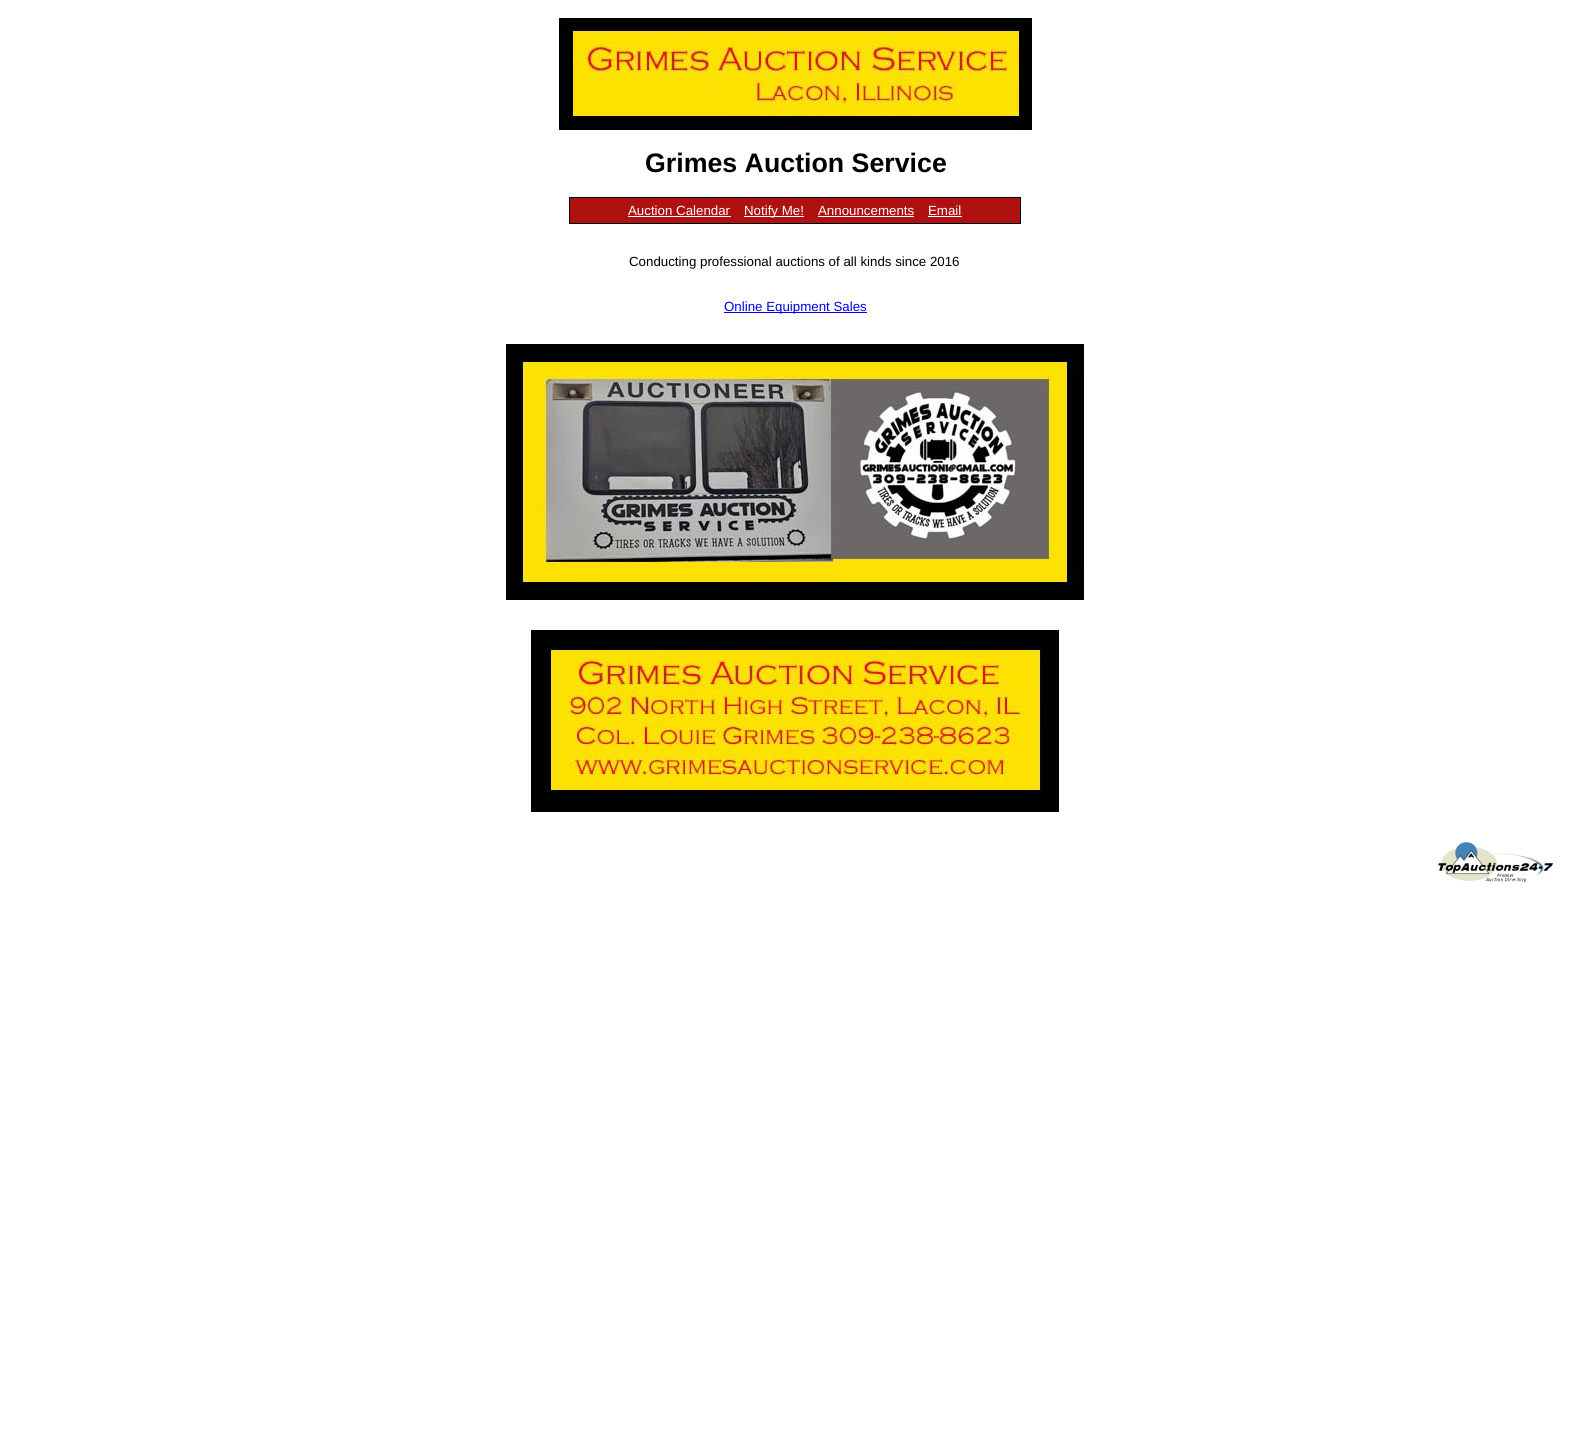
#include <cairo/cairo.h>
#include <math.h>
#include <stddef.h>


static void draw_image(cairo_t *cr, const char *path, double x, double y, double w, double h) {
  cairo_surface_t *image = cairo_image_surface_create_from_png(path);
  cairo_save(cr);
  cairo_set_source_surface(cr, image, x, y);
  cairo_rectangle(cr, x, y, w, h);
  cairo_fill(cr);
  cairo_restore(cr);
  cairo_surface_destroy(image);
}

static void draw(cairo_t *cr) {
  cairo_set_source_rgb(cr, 1, 1, 1);
  cairo_paint(cr);
  draw_image(cr, "images/1.png", 559, 18, 473, 112);
  cairo_set_source_rgb(cr, 175 / 255.0, 17 / 255.0, 17 / 255.0);
  cairo_rectangle(cr, 569.5, 197.5, 451, 26);
  cairo_fill_preserve(cr);
  cairo_set_source_rgb(cr, 0, 0, 0);
  cairo_set_line_width(cr, 1);
  cairo_stroke(cr);
  cairo_set_source_rgb(cr, 1, 1, 1);
  cairo_rectangle(cr, 628, 216, 103, 1);
  cairo_fill(cr);
  cairo_rectangle(cr, 744, 216, 60, 1);
  cairo_fill(cr);
  cairo_rectangle(cr, 818, 216, 96, 1);
  cairo_fill(cr);
  cairo_rectangle(cr, 928, 216, 34, 1);
  cairo_fill(cr);
  cairo_set_source_rgb(cr, 0, 0, 238 / 255.0);
  cairo_rectangle(cr, 724, 312, 143, 1);
  cairo_fill(cr);
  draw_image(cr, "images/2.png", 506, 344, 578, 256);
  draw_image(cr, "images/3.png", 531, 630, 528, 182);
  draw_image(cr, "images/4.png", 1438, 842, 115, 40);
  cairo_select_font_face(cr, "Liberation Sans", CAIRO_FONT_SLANT_NORMAL, CAIRO_FONT_WEIGHT_BOLD);
  cairo_set_font_size(cr, 26.75);
  cairo_set_source_rgb(cr, 0, 0, 0);
  cairo_move_to(cr, 645, 172);
  cairo_show_text(cr, "Grimes Auction Service");
  cairo_select_font_face(cr, "Liberation Sans", CAIRO_FONT_SLANT_NORMAL, CAIRO_FONT_WEIGHT_NORMAL);
  cairo_set_font_size(cr, 13.3);
  cairo_set_source_rgb(cr, 1, 1, 1);
  cairo_move_to(cr, 628, 215);
  cairo_show_text(cr, "Auction Calendar");
  cairo_move_to(cr, 744, 215);
  cairo_show_text(cr, "Notify Me!");
  cairo_move_to(cr, 818, 215);
  cairo_show_text(cr, "Announcements");
  cairo_move_to(cr, 928, 215);
  cairo_show_text(cr, "Email");
  cairo_set_source_rgb(cr, 0, 0, 0);
  cairo_move_to(cr, 629, 266);
  cairo_show_text(cr, "Conducting professional auctions of all kinds since 2016");
  cairo_set_source_rgb(cr, 0, 0, 238 / 255.0);
  cairo_move_to(cr, 724, 311);
  cairo_show_text(cr, "Online Equipment Sales");
}

int main(void) {
  cairo_surface_t *surface = cairo_image_surface_create(CAIRO_FORMAT_RGB24, 1590, 1453);
  cairo_t *cr = cairo_create(surface);
  cairo_font_options_t *options = cairo_font_options_create();
  cairo_font_options_set_hint_metrics(options, CAIRO_HINT_METRICS_OFF);
  cairo_font_options_set_hint_style(options, CAIRO_HINT_STYLE_NONE);
  cairo_set_font_options(cr, options);
  cairo_set_miter_limit(cr, 4);
  draw(cr);
  cairo_surface_write_to_png(surface, "out.png");
  cairo_font_options_destroy(options);
  cairo_destroy(cr);
  cairo_surface_destroy(surface);
  return 0;
}
